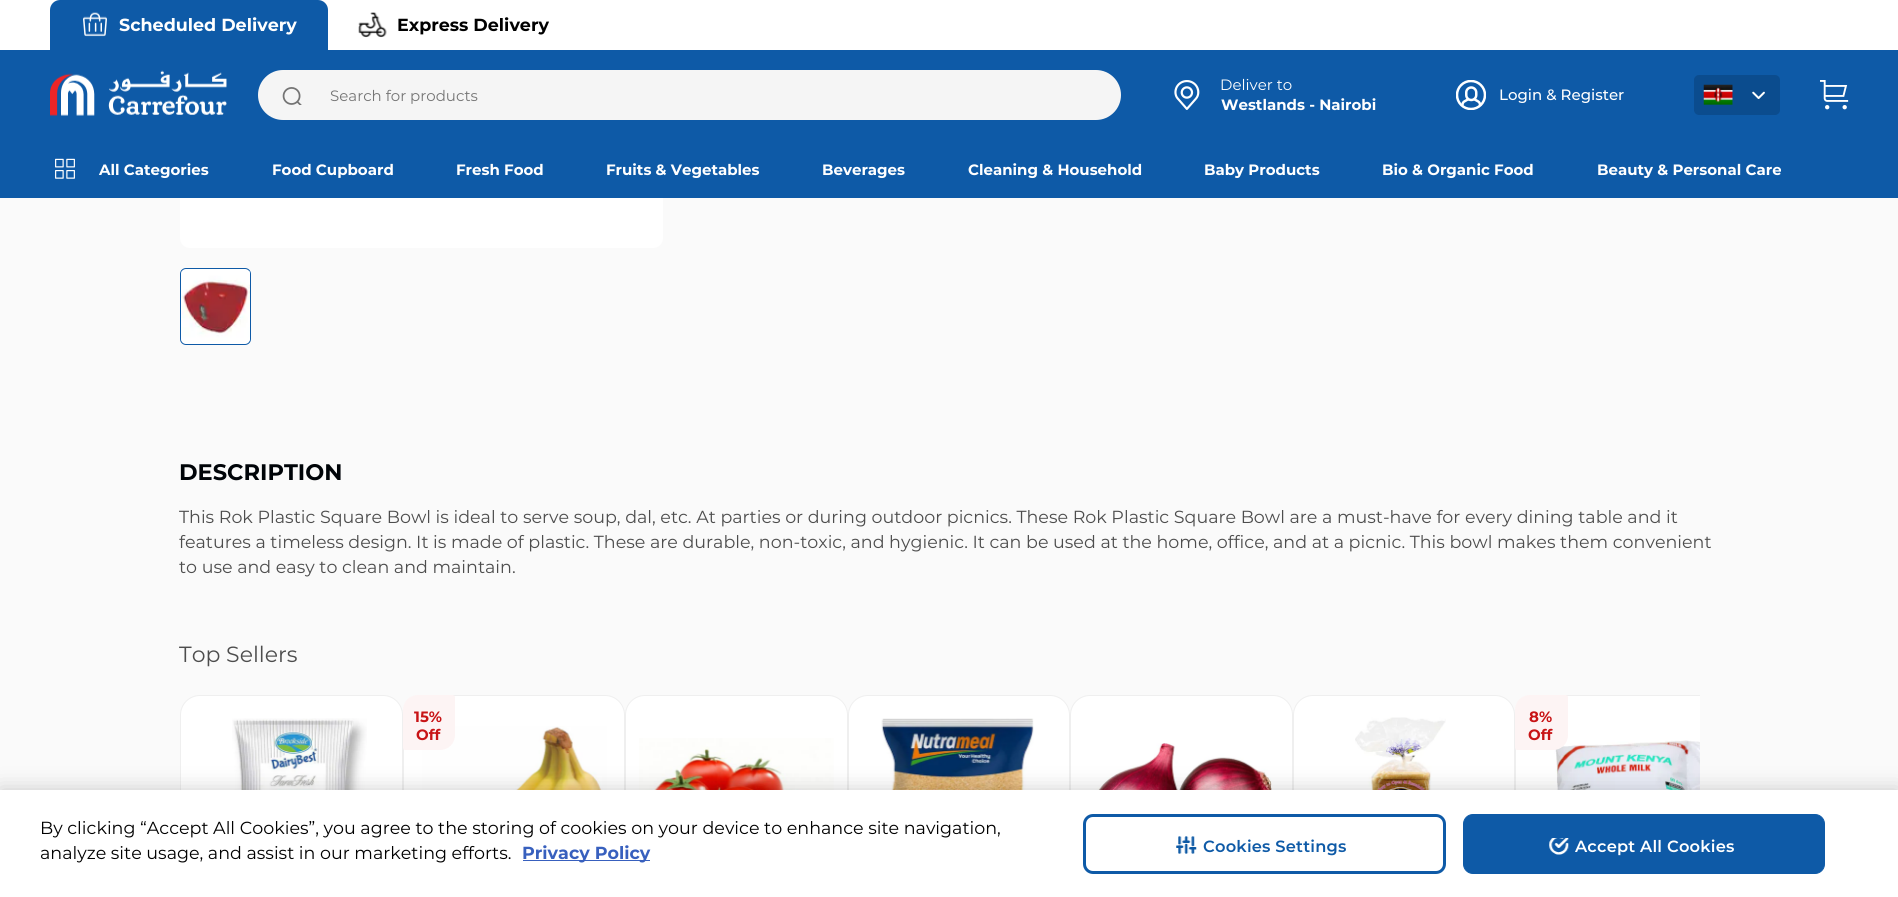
#include <cairo/cairo.h>
#include <math.h>
#include <stddef.h>


static void draw_spaced(cairo_t *cr, double x, double y, const char *s, double letter, double word) {
  cairo_move_to(cr, x, y);
  while (*s) {
    char ch[5] = {0};
    int n = 0;
    do ch[n++] = *s++; while ((*s & 0xC0) == 0x80);
    cairo_show_text(cr, ch);
    cairo_rel_move_to(cr, letter + word * (*ch == ' '), 0);
  }
}

static void rounded_rect(cairo_t *cr, double x, double y, double w, double h, double r) {
  cairo_new_sub_path(cr);
  cairo_arc(cr, x + w - r, y + h - r, r, 0, M_PI / 2);
  cairo_arc(cr, x + r, y + h - r, r, M_PI / 2, M_PI);
  cairo_arc(cr, x + r, y + r, r, M_PI, 1.5 * M_PI);
  cairo_arc(cr, x + w - r, y + r, r, 1.5 * M_PI, 2 * M_PI);
  cairo_close_path(cr);
}

static void draw_shadow(cairo_t *cr, double x, double y, double w, double h, double r, double blur, double alpha) {
  cairo_push_group_with_content(cr, CAIRO_CONTENT_ALPHA);
  cairo_set_operator(cr, CAIRO_OPERATOR_SOURCE);
  for (int i = 15; i >= -15 && fmin(w, h) + blur * i / 3 > 0; i -= 2) {
    double e = blur * i / 6;
    cairo_set_source_rgba(cr, 0, 0, 0, alpha * erfc((i - 1) / 8.5) / 2);
    rounded_rect(cr, x - e, y - e, w + 2 * e, h + 2 * e, fmax(0, fmin(r + e + blur * .6, fmin(w, h) / 2 + e)));
    cairo_fill(cr);
  }
  cairo_pattern_t *soft = cairo_pop_group(cr);
  cairo_mask(cr, soft);
  cairo_pattern_destroy(soft);
}

static void draw_image(cairo_t *cr, const char *path, double x, double y, double w, double h) {
  cairo_surface_t *image = cairo_image_surface_create_from_png(path);
  cairo_save(cr);
  cairo_set_source_surface(cr, image, x, y);
  cairo_rectangle(cr, x, y, w, h);
  cairo_fill(cr);
  cairo_restore(cr);
  cairo_surface_destroy(image);
}

static void draw(cairo_t *cr) {
  cairo_set_source_rgb(cr, 250 / 255.0, 250 / 255.0, 250 / 255.0);
  cairo_paint(cr);
  cairo_set_source_rgb(cr, 1, 1, 1);
  rounded_rect(cr, 180, -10, 483, 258, 10);
  cairo_fill(cr);
  cairo_rectangle(cr, 0, 0, 1898, 50);
  cairo_fill(cr);
  cairo_set_source_rgb(cr, 14 / 255.0, 90 / 255.0, 167 / 255.0);
  cairo_new_path(cr);
  cairo_move_to(cr, 60, 0);
  cairo_line_to(cr, 318, 0);
  cairo_curve_to(cr, 323.5, 0, 328, 4.5, 328, 10);
  cairo_line_to(cr, 328, 50);
  cairo_line_to(cr, 50, 50);
  cairo_line_to(cr, 50, 10);
  cairo_curve_to(cr, 50, 4.5, 54.5, 0, 60, 0);
  cairo_close_path(cr);
  cairo_fill(cr);
  draw_image(cr, "images/1.png", 83, 12, 24, 25);
  draw_image(cr, "images/2.png", 358, 12, 29, 26);
  cairo_rectangle(cr, 0, 50, 1898, 148);
  cairo_fill(cr);
  draw_image(cr, "images/3.png", 50, 70, 177, 46);
  cairo_set_source_rgb(cr, 245 / 255.0, 245 / 255.0, 245 / 255.0);
  rounded_rect(cr, 258, 70, 863, 50, 25);
  cairo_fill(cr);
  draw_image(cr, "images/4.png", 282, 87, 20, 18);
  draw_image(cr, "images/5.png", 1174, 80, 26, 30);
  draw_image(cr, "images/6.png", 1456, 80, 30, 30);
  cairo_set_source_rgb(cr, 11 / 255.0, 76 / 255.0, 142 / 255.0);
  rounded_rect(cr, 1694, 75, 86, 40, 5);
  cairo_fill(cr);
  draw_image(cr, "images/7.png", 1703, 84, 30, 21);
  draw_image(cr, "images/8.png", 1752, 91, 13, 8);
  draw_image(cr, "images/9.png", 1820, 80, 29, 30);
  draw_image(cr, "images/10.png", 55, 158, 20, 21);
  cairo_set_source_rgb(cr, 1, 1, 1);
  rounded_rect(cr, 180.5, 268.5, 70, 76, 5.5);
  cairo_fill_preserve(cr);
  cairo_set_source_rgb(cr, 14 / 255.0, 90 / 255.0, 167 / 255.0);
  cairo_set_line_width(cr, 1);
  cairo_stroke(cr);
  draw_image(cr, "images/11.png", 181, 270, 69, 71);
  cairo_set_source_rgb(cr, 1, 1, 1);
  rounded_rect(cr, 180.5, 695.5, 222, 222, 19.5);
  cairo_fill_preserve(cr);
  cairo_set_source_rgb(cr, 239 / 255.0, 239 / 255.0, 239 / 255.0);
  cairo_stroke(cr);
  draw_image(cr, "images/12.png", 232, 718, 135, 72);
  cairo_set_source_rgb(cr, 1, 1, 1);
  rounded_rect(cr, 403.5, 695.5, 221, 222, 19.5);
  cairo_fill_preserve(cr);
  cairo_set_source_rgb(cr, 239 / 255.0, 239 / 255.0, 239 / 255.0);
  cairo_stroke(cr);
  draw_image(cr, "images/13.png", 422, 726, 185, 64);
  cairo_set_source_rgb(cr, 253 / 255.0, 244 / 255.0, 244 / 255.0);
  cairo_new_path(cr);
  cairo_move_to(cr, 418, 695);
  cairo_line_to(cr, 452.5, 695);
  cairo_curve_to(cr, 454, 695, 455, 696, 455, 697.5);
  cairo_line_to(cr, 455, 735);
  cairo_curve_to(cr, 455, 743.5, 448.5, 750, 440, 750);
  cairo_line_to(cr, 405.5, 750);
  cairo_curve_to(cr, 404, 750, 403, 749, 403, 747.5);
  cairo_line_to(cr, 403, 710);
  cairo_curve_to(cr, 403, 701.5, 409.5, 695, 418, 695);
  cairo_close_path(cr);
  cairo_fill(cr);
  cairo_set_source_rgb(cr, 1, 1, 1);
  rounded_rect(cr, 625.5, 695.5, 222, 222, 19.5);
  cairo_fill_preserve(cr);
  cairo_set_source_rgb(cr, 239 / 255.0, 239 / 255.0, 239 / 255.0);
  cairo_stroke(cr);
  draw_image(cr, "images/14.png", 639, 738, 195, 52);
  cairo_set_source_rgb(cr, 1, 1, 1);
  rounded_rect(cr, 848.5, 695.5, 221, 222, 19.5);
  cairo_fill_preserve(cr);
  cairo_set_source_rgb(cr, 239 / 255.0, 239 / 255.0, 239 / 255.0);
  cairo_stroke(cr);
  draw_image(cr, "images/15.png", 881, 718, 153, 72);
  cairo_set_source_rgb(cr, 1, 1, 1);
  rounded_rect(cr, 1070.5, 695.5, 222, 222, 19.5);
  cairo_fill_preserve(cr);
  cairo_set_source_rgb(cr, 239 / 255.0, 239 / 255.0, 239 / 255.0);
  cairo_stroke(cr);
  draw_image(cr, "images/16.png", 1089, 743, 183, 47);
  cairo_set_source_rgb(cr, 1, 1, 1);
  rounded_rect(cr, 1293.5, 695.5, 221, 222, 19.5);
  cairo_fill_preserve(cr);
  cairo_set_source_rgb(cr, 239 / 255.0, 239 / 255.0, 239 / 255.0);
  cairo_stroke(cr);
  draw_image(cr, "images/17.png", 1355, 717, 91, 73);
  cairo_set_source_rgb(cr, 1, 1, 1);
  cairo_new_path(cr);
  cairo_move_to(cr, 1535, 695);
  cairo_line_to(cr, 1700, 695);
  cairo_line_to(cr, 1700, 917);
  cairo_line_to(cr, 1535, 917);
  cairo_curve_to(cr, 1524, 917, 1515, 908, 1515, 897);
  cairo_line_to(cr, 1515, 715);
  cairo_curve_to(cr, 1515, 704, 1524, 695, 1535, 695);
  cairo_close_path(cr);
  cairo_fill(cr);
  cairo_save(cr);
  cairo_rectangle(cr, 180, 695, 1520, 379);
  cairo_clip(cr);
  rounded_rect(cr, 1515.5, 695.5, 222, 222, 19.5);
  cairo_set_source_rgb(cr, 239 / 255.0, 239 / 255.0, 239 / 255.0);
  cairo_stroke(cr);
  cairo_restore(cr);
  draw_image(cr, "images/18.png", 1535, 740, 165, 50);
  cairo_set_source_rgb(cr, 253 / 255.0, 244 / 255.0, 244 / 255.0);
  cairo_new_path(cr);
  cairo_move_to(cr, 1530, 695);
  cairo_line_to(cr, 1565.5, 695);
  cairo_curve_to(cr, 1567, 695, 1568, 696, 1568, 697.5);
  cairo_line_to(cr, 1568, 735);
  cairo_curve_to(cr, 1568, 743.5, 1561.5, 750, 1553, 750);
  cairo_line_to(cr, 1517.5, 750);
  cairo_curve_to(cr, 1516, 750, 1515, 749, 1515, 747.5);
  cairo_line_to(cr, 1515, 710);
  cairo_curve_to(cr, 1515, 701.5, 1521.5, 695, 1530, 695);
  cairo_close_path(cr);
  cairo_fill(cr);
  cairo_set_source_rgb(cr, 0, 0, 0);
  draw_shadow(cr, 0, 790, 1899, 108, 0, 11, 0.2);
  cairo_set_source_rgb(cr, 1, 1, 1);
  cairo_rectangle(cr, 0, 790, 1898, 107);
  cairo_fill(cr);
  cairo_set_source_rgb(cr, 56 / 255.0, 96 / 255.0, 190 / 255.0);
  cairo_rectangle(cr, 523, 860, 127, 1);
  cairo_fill(cr);
  rounded_rect(cr, 1084.5, 815.5, 360, 57, 8.5);
  cairo_set_source_rgb(cr, 14 / 255.0, 90 / 255.0, 167 / 255.0);
  cairo_set_line_width(cr, 3);
  cairo_stroke(cr);
  draw_image(cr, "images/19.png", 1176, 836, 21, 18);
  rounded_rect(cr, 1463.5, 814.5, 361, 59, 9.5);
  cairo_fill_preserve(cr);
  cairo_set_line_width(cr, 1);
  cairo_stroke(cr);
  draw_image(cr, "images/20.png", 1549, 838, 20, 17);
  cairo_select_font_face(cr, "Montserrat", CAIRO_FONT_SLANT_NORMAL, CAIRO_FONT_WEIGHT_BOLD);
  cairo_set_font_size(cr, 17.5);
  cairo_set_source_rgb(cr, 1, 1, 1);
  cairo_move_to(cr, 119, 31);
  cairo_show_text(cr, "Scheduled Delivery");
  cairo_set_source_rgb(cr, 0, 0, 0);
  cairo_move_to(cr, 397, 31);
  cairo_show_text(cr, "Express Delivery");
  cairo_select_font_face(cr, "Montserrat", CAIRO_FONT_SLANT_NORMAL, CAIRO_FONT_WEIGHT_NORMAL);
  cairo_set_font_size(cr, 15);
  cairo_set_source_rgb(cr, 117 / 255.0, 117 / 255.0, 117 / 255.0);
  cairo_move_to(cr, 330, 101);
  cairo_show_text(cr, "Search for products");
  cairo_set_source_rgb(cr, 1, 1, 1);
  cairo_move_to(cr, 1220, 90);
  cairo_show_text(cr, "Deliver to");
  cairo_select_font_face(cr, "Montserrat", CAIRO_FONT_SLANT_NORMAL, CAIRO_FONT_WEIGHT_BOLD);
  cairo_move_to(cr, 1221, 110);
  cairo_show_text(cr, "Westlands - Nairobi");
  cairo_select_font_face(cr, "Montserrat Medium", CAIRO_FONT_SLANT_NORMAL, CAIRO_FONT_WEIGHT_NORMAL);
  cairo_move_to(cr, 1499, 100);
  cairo_show_text(cr, "Login & Register");
  cairo_select_font_face(cr, "Montserrat", CAIRO_FONT_SLANT_NORMAL, CAIRO_FONT_WEIGHT_BOLD);
  cairo_move_to(cr, 99, 175);
  cairo_show_text(cr, "All Categories");
  cairo_move_to(cr, 272, 175);
  cairo_show_text(cr, "Food Cupboard");
  cairo_move_to(cr, 456, 175);
  cairo_show_text(cr, "Fresh Food");
  cairo_move_to(cr, 606, 175);
  cairo_show_text(cr, "Fruits & Vegetables");
  cairo_move_to(cr, 822, 175);
  cairo_show_text(cr, "Beverages");
  cairo_move_to(cr, 968, 175);
  cairo_show_text(cr, "Cleaning & Household");
  cairo_move_to(cr, 1204, 175);
  cairo_show_text(cr, "Baby Products");
  cairo_move_to(cr, 1382, 175);
  cairo_show_text(cr, "Bio & Organic Food");
  cairo_move_to(cr, 1597, 175);
  cairo_show_text(cr, "Beauty & Personal Care");
  cairo_set_font_size(cr, 22.5);
  cairo_set_source_rgb(cr, 0, 4 / 255.0, 8 / 255.0);
  cairo_move_to(cr, 179, 480);
  cairo_show_text(cr, "DESCRIPTION");
  cairo_select_font_face(cr, "Montserrat", CAIRO_FONT_SLANT_NORMAL, CAIRO_FONT_WEIGHT_NORMAL);
  cairo_set_font_size(cr, 17.5);
  cairo_set_source_rgb(cr, 77 / 255.0, 77 / 255.0, 77 / 255.0);
  cairo_move_to(cr, 179, 523);
  cairo_show_text(cr, "This Rok Plastic Square Bowl is ideal to serve soup, dal, etc. At parties or during outdoor picnics. These Rok Plastic Square Bowl are a must-have for every dining table and it");
  cairo_move_to(cr, 179, 548);
  cairo_show_text(cr, "features a timeless design. It is made of plastic. These are durable, non-toxic, and hygienic. It can be used at the home, office, and at a picnic. This bowl makes them convenient");
  cairo_move_to(cr, 179, 573);
  cairo_show_text(cr, "to use and easy to clean and maintain.");
  cairo_set_font_size(cr, 22);
  cairo_move_to(cr, 179, 662);
  cairo_show_text(cr, "Top Sellers");
  cairo_select_font_face(cr, "Montserrat", CAIRO_FONT_SLANT_NORMAL, CAIRO_FONT_WEIGHT_BOLD);
  cairo_set_font_size(cr, 15);
  cairo_set_source_rgb(cr, 200 / 255.0, 20 / 255.0, 22 / 255.0);
  cairo_move_to(cr, 414, 722);
  cairo_show_text(cr, "15%");
  cairo_move_to(cr, 416, 740);
  cairo_show_text(cr, "Off");
  cairo_move_to(cr, 1529, 722);
  cairo_show_text(cr, "8%");
  cairo_move_to(cr, 1528, 740);
  cairo_show_text(cr, "Off");
  cairo_select_font_face(cr, "Montserrat", CAIRO_FONT_SLANT_NORMAL, CAIRO_FONT_WEIGHT_NORMAL);
  cairo_set_font_size(cr, 17.5);
  cairo_set_source_rgb(cr, 0, 0, 0);
  cairo_move_to(cr, 40, 834);
  cairo_show_text(cr, "By clicking “Accept All Cookies”, you agree to the storing of cookies on your device to enhance site navigation,");
  cairo_move_to(cr, 40, 859);
  cairo_show_text(cr, "analyze site usage, and assist in our marketing efforts.");
  cairo_select_font_face(cr, "Montserrat", CAIRO_FONT_SLANT_NORMAL, CAIRO_FONT_WEIGHT_BOLD);
  cairo_set_source_rgb(cr, 56 / 255.0, 96 / 255.0, 190 / 255.0);
  cairo_move_to(cr, 522, 859);
  cairo_show_text(cr, "Privacy Policy");
  cairo_select_font_face(cr, "Montserrat SemiBold", CAIRO_FONT_SLANT_NORMAL, CAIRO_FONT_WEIGHT_NORMAL);
  cairo_set_font_size(cr, 16.25);
  cairo_set_source_rgb(cr, 14 / 255.0, 90 / 255.0, 167 / 255.0);
  draw_spaced(cr, 1203, 852, "Cookies Settings", 0.2, 0);
  cairo_set_source_rgb(cr, 1, 1, 1);
  draw_spaced(cr, 1575, 852, "Accept All Cookies", 0.2, 0);
}

int main(void) {
  cairo_surface_t *surface = cairo_image_surface_create(CAIRO_FORMAT_RGB24, 1898, 897);
  cairo_t *cr = cairo_create(surface);
  cairo_font_options_t *options = cairo_font_options_create();
  cairo_font_options_set_hint_metrics(options, CAIRO_HINT_METRICS_OFF);
  cairo_font_options_set_hint_style(options, CAIRO_HINT_STYLE_NONE);
  cairo_set_font_options(cr, options);
  cairo_set_miter_limit(cr, 4);
  draw(cr);
  cairo_surface_write_to_png(surface, "out.png");
  cairo_font_options_destroy(options);
  cairo_destroy(cr);
  cairo_surface_destroy(surface);
  return 0;
}
